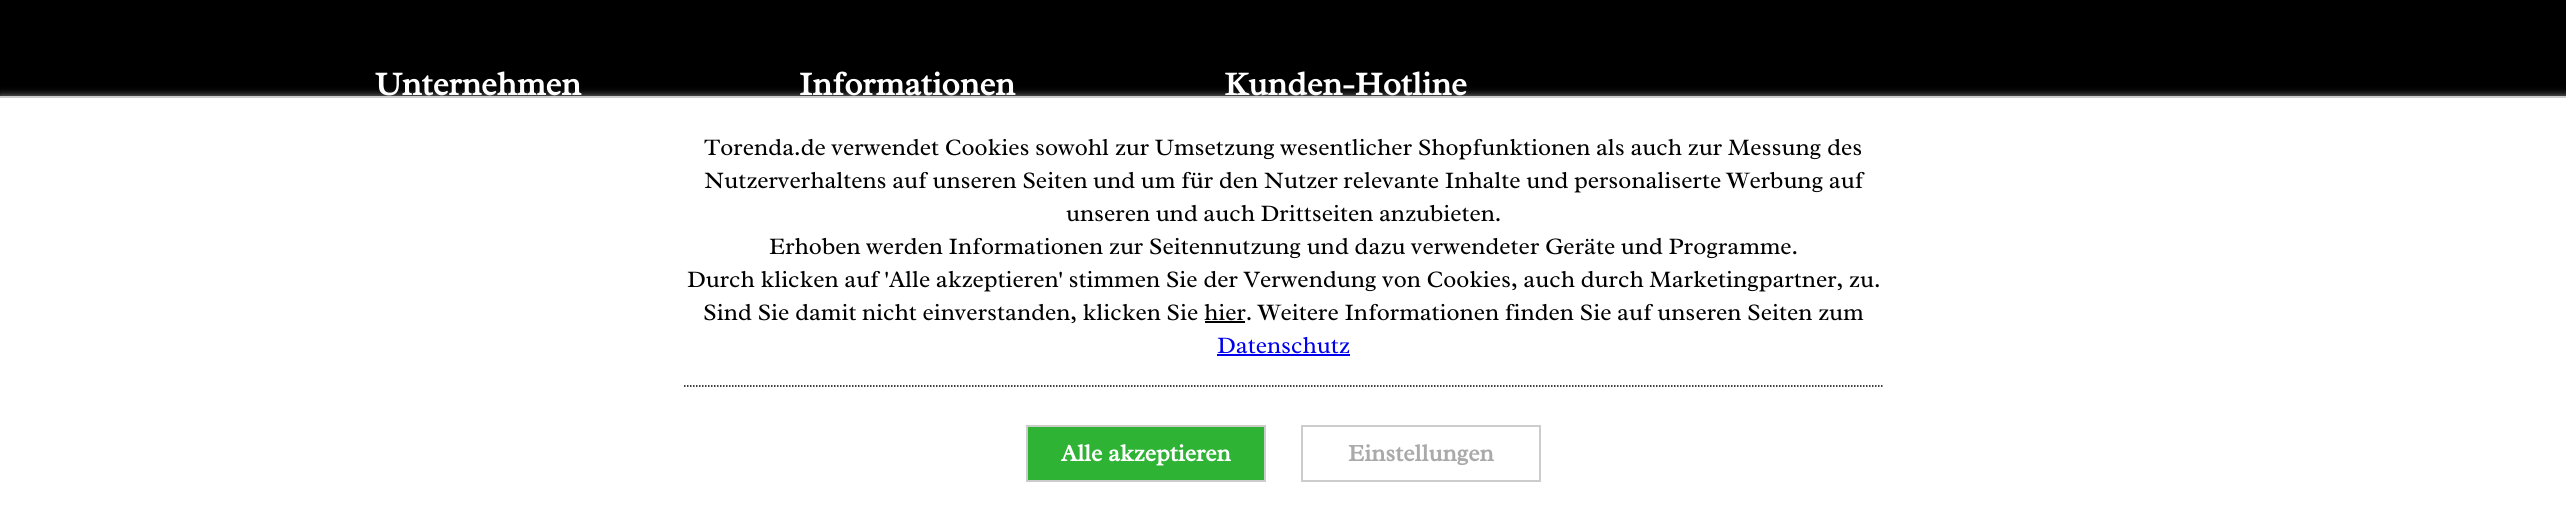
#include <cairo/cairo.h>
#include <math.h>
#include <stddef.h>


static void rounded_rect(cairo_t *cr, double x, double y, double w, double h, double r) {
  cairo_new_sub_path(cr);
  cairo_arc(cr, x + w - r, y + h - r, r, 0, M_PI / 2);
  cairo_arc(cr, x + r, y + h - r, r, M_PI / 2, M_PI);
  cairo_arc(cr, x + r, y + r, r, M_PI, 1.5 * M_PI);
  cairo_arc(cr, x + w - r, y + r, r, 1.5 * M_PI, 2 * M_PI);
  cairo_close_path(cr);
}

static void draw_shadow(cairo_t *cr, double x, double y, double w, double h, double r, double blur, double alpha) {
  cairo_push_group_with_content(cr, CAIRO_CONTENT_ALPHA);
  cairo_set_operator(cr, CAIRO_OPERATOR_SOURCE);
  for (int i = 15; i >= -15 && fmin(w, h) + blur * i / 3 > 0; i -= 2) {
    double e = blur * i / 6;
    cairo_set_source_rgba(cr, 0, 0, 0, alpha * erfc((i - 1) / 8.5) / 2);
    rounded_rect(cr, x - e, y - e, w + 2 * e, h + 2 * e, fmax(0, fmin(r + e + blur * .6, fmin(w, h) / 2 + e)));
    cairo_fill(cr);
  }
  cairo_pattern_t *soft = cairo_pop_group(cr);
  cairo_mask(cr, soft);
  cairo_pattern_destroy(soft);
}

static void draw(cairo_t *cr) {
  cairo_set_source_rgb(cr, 0, 0, 0);
  cairo_paint(cr);
  cairo_set_source_rgb(cr, 136 / 255.0, 136 / 255.0, 136 / 255.0);
  draw_shadow(cr, 0, 96, 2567, 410, 0, 4, 1);
  cairo_set_source_rgb(cr, 1, 1, 1);
  cairo_rectangle(cr, 0, 98, 2566, 407);
  cairo_fill(cr);
  cairo_set_source_rgb(cr, 204 / 255.0, 204 / 255.0, 204 / 255.0);
  cairo_rectangle(cr, 0, 96, 2566, 2);
  cairo_fill(cr);
  cairo_set_source_rgb(cr, 0, 0, 0);
  cairo_rectangle(cr, 1205, 321, 40, 2);
  cairo_fill(cr);
  cairo_set_source_rgb(cr, 0, 0, 238 / 255.0);
  cairo_rectangle(cr, 1217, 354, 133, 2);
  cairo_fill(cr);
  cairo_new_path(cr);
  cairo_move_to(cr, 684, 386);
  cairo_line_to(cr, 1884, 386);
  cairo_set_source_rgb(cr, 0, 0, 0);
  cairo_set_line_width(cr, 1.5);
  cairo_set_dash(cr, (double[]){1.5, 1.5}, 2, 0);
  cairo_stroke(cr);
  cairo_set_source_rgb(cr, 46 / 255.0, 179 / 255.0, 52 / 255.0);
  cairo_rectangle(cr, 1027, 426, 238, 55);
  cairo_fill_preserve(cr);
  cairo_set_source_rgb(cr, 204 / 255.0, 204 / 255.0, 204 / 255.0);
  cairo_set_line_width(cr, 2);
  cairo_set_dash(cr, NULL, 0, 0);
  cairo_stroke(cr);
  cairo_rectangle(cr, 1302, 426, 238, 55);
  cairo_stroke(cr);
  cairo_select_font_face(cr, "Radley", CAIRO_FONT_SLANT_NORMAL, CAIRO_FONT_WEIGHT_BOLD);
  cairo_set_font_size(cr, 33.5);
  cairo_set_source_rgb(cr, 1, 1, 1);
  cairo_move_to(cr, 375, 95);
  cairo_show_text(cr, "Unternehmen");
  cairo_move_to(cr, 799, 95);
  cairo_show_text(cr, "Informationen");
  cairo_move_to(cr, 1224, 95);
  cairo_show_text(cr, "Kunden-Hotline");
  cairo_select_font_face(cr, "Radley", CAIRO_FONT_SLANT_NORMAL, CAIRO_FONT_WEIGHT_NORMAL);
  cairo_set_font_size(cr, 24);
  cairo_set_source_rgb(cr, 0, 0, 0);
  cairo_move_to(cr, 704, 155);
  cairo_show_text(cr, "Torenda.de verwendet Cookies sowohl zur Umsetzung wesentlicher Shopfunktionen als auch zur Messung des");
  cairo_move_to(cr, 704, 188);
  cairo_show_text(cr, "Nutzerverhaltens auf unseren Seiten und um für den Nutzer relevante Inhalte und personaliserte Werbung auf");
  cairo_move_to(cr, 1066, 221);
  cairo_show_text(cr, "unseren und auch Drittseiten anzubieten.");
  cairo_move_to(cr, 769, 254);
  cairo_show_text(cr, "Erhoben werden Informationen zur Seitennutzung und dazu verwendeter Geräte und Programme.");
  cairo_move_to(cr, 687, 287);
  cairo_show_text(cr, "Durch klicken auf 'Alle akzeptieren' stimmen Sie der Verwendung von Cookies, auch durch Marketingpartner, zu.");
  cairo_move_to(cr, 703, 320);
  cairo_show_text(cr, "Sind Sie damit nicht einverstanden, klicken Sie hier. Weitere Informationen finden Sie auf unseren Seiten zum");
  cairo_set_source_rgb(cr, 0, 0, 238 / 255.0);
  cairo_move_to(cr, 1217, 353);
  cairo_show_text(cr, "Datenschutz");
  cairo_select_font_face(cr, "Radley", CAIRO_FONT_SLANT_NORMAL, CAIRO_FONT_WEIGHT_BOLD);
  cairo_set_source_rgb(cr, 1, 1, 1);
  cairo_move_to(cr, 1061, 461);
  cairo_show_text(cr, "Alle akzeptieren");
  cairo_set_source_rgb(cr, 170 / 255.0, 170 / 255.0, 170 / 255.0);
  cairo_move_to(cr, 1348, 461);
  cairo_show_text(cr, "Einstellungen");
}

int main(void) {
  cairo_surface_t *surface = cairo_image_surface_create(CAIRO_FORMAT_RGB24, 2566, 505);
  cairo_t *cr = cairo_create(surface);
  cairo_font_options_t *options = cairo_font_options_create();
  cairo_font_options_set_hint_metrics(options, CAIRO_HINT_METRICS_OFF);
  cairo_font_options_set_hint_style(options, CAIRO_HINT_STYLE_NONE);
  cairo_set_font_options(cr, options);
  cairo_set_miter_limit(cr, 4);
  draw(cr);
  cairo_surface_write_to_png(surface, "out.png");
  cairo_font_options_destroy(options);
  cairo_destroy(cr);
  cairo_surface_destroy(surface);
  return 0;
}
